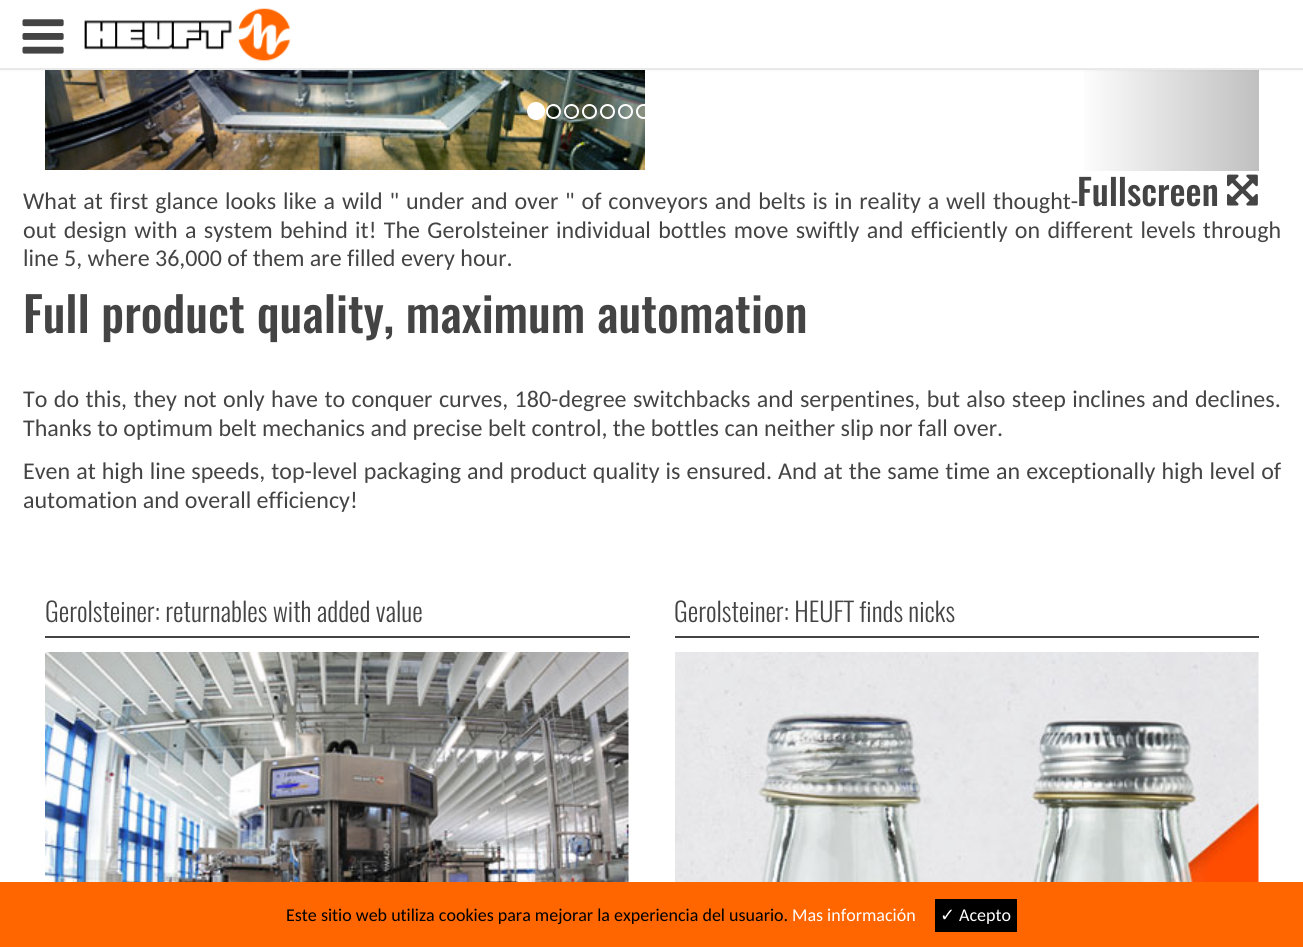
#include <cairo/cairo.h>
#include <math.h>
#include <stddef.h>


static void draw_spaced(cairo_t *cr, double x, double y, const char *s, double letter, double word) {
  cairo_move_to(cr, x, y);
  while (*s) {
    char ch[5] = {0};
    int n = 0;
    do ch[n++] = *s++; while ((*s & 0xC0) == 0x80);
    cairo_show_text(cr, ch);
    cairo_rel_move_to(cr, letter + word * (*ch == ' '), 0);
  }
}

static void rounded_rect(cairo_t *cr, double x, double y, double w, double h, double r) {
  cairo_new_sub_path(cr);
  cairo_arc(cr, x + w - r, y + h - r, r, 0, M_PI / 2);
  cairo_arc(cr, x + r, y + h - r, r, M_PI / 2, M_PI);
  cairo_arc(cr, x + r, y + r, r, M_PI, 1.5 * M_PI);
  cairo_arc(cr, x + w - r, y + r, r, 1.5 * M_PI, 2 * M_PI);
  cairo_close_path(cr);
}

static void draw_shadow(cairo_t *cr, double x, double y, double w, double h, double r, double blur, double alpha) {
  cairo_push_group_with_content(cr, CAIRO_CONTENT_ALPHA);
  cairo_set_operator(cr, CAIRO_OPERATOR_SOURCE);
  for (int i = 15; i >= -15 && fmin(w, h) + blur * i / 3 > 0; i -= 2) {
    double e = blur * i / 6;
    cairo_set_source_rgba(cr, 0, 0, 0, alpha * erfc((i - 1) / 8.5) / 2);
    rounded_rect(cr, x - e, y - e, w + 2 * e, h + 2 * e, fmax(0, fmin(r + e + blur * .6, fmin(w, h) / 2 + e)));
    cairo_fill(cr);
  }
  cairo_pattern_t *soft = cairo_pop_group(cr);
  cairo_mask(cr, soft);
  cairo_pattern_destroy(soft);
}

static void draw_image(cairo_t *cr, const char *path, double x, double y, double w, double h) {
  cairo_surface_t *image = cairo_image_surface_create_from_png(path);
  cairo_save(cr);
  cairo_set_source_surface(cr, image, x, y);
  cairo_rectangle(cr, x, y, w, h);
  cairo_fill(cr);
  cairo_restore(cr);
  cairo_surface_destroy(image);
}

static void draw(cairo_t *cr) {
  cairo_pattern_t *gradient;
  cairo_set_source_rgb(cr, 1, 1, 1);
  cairo_paint(cr);
  draw_image(cr, "images/3.png", 45, 70, 600, 100);
  gradient = cairo_pattern_create_linear(1077, 21, 1259, 21);
  cairo_pattern_add_color_stop_rgba(gradient, 0, 1, 1, 1, 1);
  cairo_pattern_add_color_stop_rgba(gradient, 1, 192 / 255.0, 192 / 255.0, 192 / 255.0, 1);
  cairo_set_source(cr, gradient);
  cairo_pattern_destroy(gradient);
  cairo_rectangle(cr, 1084, 70, 175, 101);
  cairo_fill(cr);
  cairo_set_source_rgb(cr, 0, 0, 0);
  draw_shadow(cr, 0, -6, 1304, 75, 0, 2, 0.1);
  cairo_set_source_rgb(cr, 1, 1, 1);
  cairo_rectangle(cr, 0, 0, 1303, 68);
  cairo_fill(cr);
  cairo_set_source_rgb(cr, 233 / 255.0, 233 / 255.0, 233 / 255.0);
  cairo_rectangle(cr, 0, 68, 1303, 2);
  cairo_fill(cr);
  draw_image(cr, "images/1.png", 22, 19, 42, 35);
  draw_image(cr, "images/2.png", 84, 8, 207, 54);
  cairo_set_source_rgb(cr, 1, 1, 1);
  cairo_arc(cr, 536, 111, 8, 0, 2 * M_PI);
  cairo_fill_preserve(cr);
  cairo_stroke(cr);
  cairo_arc(cr, 553.5, 111.5, 6.5, 0, 2 * M_PI);
  cairo_stroke(cr);
  cairo_arc(cr, 571.5, 111.5, 6.5, 0, 2 * M_PI);
  cairo_stroke(cr);
  cairo_arc(cr, 589.5, 111.5, 6.5, 0, 2 * M_PI);
  cairo_stroke(cr);
  cairo_arc(cr, 607.5, 111.5, 6.5, 0, 2 * M_PI);
  cairo_stroke(cr);
  cairo_arc(cr, 625.5, 111.5, 6.5, 0, 2 * M_PI);
  cairo_stroke(cr);
  cairo_arc(cr, 643.5, 111.5, 6.5, 0, 2 * M_PI);
  cairo_stroke(cr);
  draw_image(cr, "images/4.png", 1227, 174, 31, 32);
  cairo_set_source_rgb(cr, 68 / 255.0, 68 / 255.0, 68 / 255.0);
  cairo_rectangle(cr, 45, 636, 585, 2);
  cairo_fill(cr);
  draw_image(cr, "images/5.png", 45, 652, 584, 230);
  cairo_rectangle(cr, 675, 636, 584, 2);
  cairo_fill(cr);
  draw_image(cr, "images/6.png", 675, 652, 584, 230);
  cairo_set_source_rgb(cr, 1, 102 / 255.0, 0);
  cairo_rectangle(cr, 0, 882, 1303, 65);
  cairo_fill(cr);
  cairo_set_source_rgb(cr, 0, 0, 0);
  cairo_rectangle(cr, 935, 899, 82, 33);
  cairo_fill(cr);
  cairo_select_font_face(cr, "Oswald Medium", CAIRO_FONT_SLANT_NORMAL, CAIRO_FONT_WEIGHT_NORMAL);
  cairo_set_font_size(cr, 36);
  cairo_set_source_rgb(cr, 68 / 255.0, 68 / 255.0, 68 / 255.0);
  cairo_move_to(cr, 1077, 206);
  cairo_show_text(cr, "Fullscreen");
  cairo_select_font_face(cr, "Carlito", CAIRO_FONT_SLANT_NORMAL, CAIRO_FONT_WEIGHT_NORMAL);
  cairo_set_font_size(cr, 24);
  draw_spaced(cr, 23, 209, "What at first glance looks like a wild \" under and over \" of conveyors and belts is in reality a well thought-", 0, 1.4);
  draw_spaced(cr, 23, 238, "out design with a system behind it! The Gerolsteiner individual bottles move swiftly and efficiently on different levels through", 0, 1.9);
  cairo_move_to(cr, 23, 266);
  cairo_show_text(cr, "line 5, where 36,000 of them are filled every hour.");
  cairo_select_font_face(cr, "Oswald Medium", CAIRO_FONT_SLANT_NORMAL, CAIRO_FONT_WEIGHT_NORMAL);
  cairo_set_font_size(cr, 48);
  cairo_move_to(cr, 23, 333);
  cairo_show_text(cr, "Full product quality, maximum automation");
  cairo_select_font_face(cr, "Carlito", CAIRO_FONT_SLANT_NORMAL, CAIRO_FONT_WEIGHT_NORMAL);
  cairo_set_font_size(cr, 24);
  draw_spaced(cr, 23, 407, "To do this, they not only have to conquer curves, 180-degree switchbacks and serpentines, but also steep inclines and declines.", 0, 1);
  cairo_move_to(cr, 23, 436);
  cairo_show_text(cr, "Thanks to optimum belt mechanics and precise belt control, the bottles can neither slip nor fall over.");
  draw_spaced(cr, 23, 479, "Even at high line speeds, top-level packaging and product quality is ensured. And at the same time an exceptionally high level of", 0, 0.6);
  cairo_move_to(cr, 23, 508);
  cairo_show_text(cr, "automation and overall efficiency!");
  cairo_select_font_face(cr, "Oswald Light", CAIRO_FONT_SLANT_NORMAL, CAIRO_FONT_WEIGHT_NORMAL);
  cairo_set_font_size(cr, 26.4);
  cairo_move_to(cr, 45, 622);
  cairo_show_text(cr, "Gerolsteiner: returnables with added value");
  cairo_move_to(cr, 674, 622);
  cairo_show_text(cr, "Gerolsteiner: HEUFT finds nicks");
  cairo_select_font_face(cr, "Carlito", CAIRO_FONT_SLANT_NORMAL, CAIRO_FONT_WEIGHT_NORMAL);
  cairo_set_font_size(cr, 18);
  cairo_set_source_rgb(cr, 0, 0, 0);
  cairo_move_to(cr, 286, 921);
  cairo_show_text(cr, "Este sitio web utiliza cookies para mejorar la experiencia del usuario.");
  cairo_set_source_rgb(cr, 1, 1, 1);
  cairo_move_to(cr, 792, 921);
  cairo_show_text(cr, "Mas información");
  cairo_select_font_face(cr, "DejaVu Sans", CAIRO_FONT_SLANT_NORMAL, CAIRO_FONT_WEIGHT_NORMAL);
  cairo_move_to(cr, 940, 921);
  cairo_show_text(cr, "✓");
  cairo_select_font_face(cr, "Carlito", CAIRO_FONT_SLANT_NORMAL, CAIRO_FONT_WEIGHT_NORMAL);
  cairo_move_to(cr, 959, 921);
  cairo_show_text(cr, "Acepto");
}

int main(void) {
  cairo_surface_t *surface = cairo_image_surface_create(CAIRO_FORMAT_RGB24, 1303, 947);
  cairo_t *cr = cairo_create(surface);
  cairo_font_options_t *options = cairo_font_options_create();
  cairo_font_options_set_hint_metrics(options, CAIRO_HINT_METRICS_OFF);
  cairo_font_options_set_hint_style(options, CAIRO_HINT_STYLE_NONE);
  cairo_set_font_options(cr, options);
  cairo_set_miter_limit(cr, 4);
  draw(cr);
  cairo_surface_write_to_png(surface, "out.png");
  cairo_font_options_destroy(options);
  cairo_destroy(cr);
  cairo_surface_destroy(surface);
  return 0;
}
